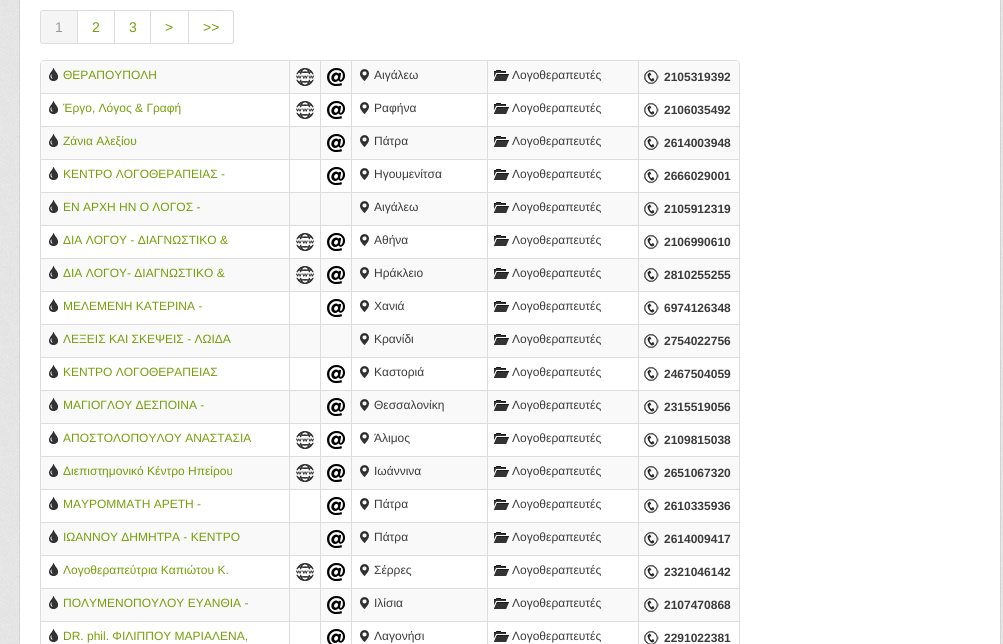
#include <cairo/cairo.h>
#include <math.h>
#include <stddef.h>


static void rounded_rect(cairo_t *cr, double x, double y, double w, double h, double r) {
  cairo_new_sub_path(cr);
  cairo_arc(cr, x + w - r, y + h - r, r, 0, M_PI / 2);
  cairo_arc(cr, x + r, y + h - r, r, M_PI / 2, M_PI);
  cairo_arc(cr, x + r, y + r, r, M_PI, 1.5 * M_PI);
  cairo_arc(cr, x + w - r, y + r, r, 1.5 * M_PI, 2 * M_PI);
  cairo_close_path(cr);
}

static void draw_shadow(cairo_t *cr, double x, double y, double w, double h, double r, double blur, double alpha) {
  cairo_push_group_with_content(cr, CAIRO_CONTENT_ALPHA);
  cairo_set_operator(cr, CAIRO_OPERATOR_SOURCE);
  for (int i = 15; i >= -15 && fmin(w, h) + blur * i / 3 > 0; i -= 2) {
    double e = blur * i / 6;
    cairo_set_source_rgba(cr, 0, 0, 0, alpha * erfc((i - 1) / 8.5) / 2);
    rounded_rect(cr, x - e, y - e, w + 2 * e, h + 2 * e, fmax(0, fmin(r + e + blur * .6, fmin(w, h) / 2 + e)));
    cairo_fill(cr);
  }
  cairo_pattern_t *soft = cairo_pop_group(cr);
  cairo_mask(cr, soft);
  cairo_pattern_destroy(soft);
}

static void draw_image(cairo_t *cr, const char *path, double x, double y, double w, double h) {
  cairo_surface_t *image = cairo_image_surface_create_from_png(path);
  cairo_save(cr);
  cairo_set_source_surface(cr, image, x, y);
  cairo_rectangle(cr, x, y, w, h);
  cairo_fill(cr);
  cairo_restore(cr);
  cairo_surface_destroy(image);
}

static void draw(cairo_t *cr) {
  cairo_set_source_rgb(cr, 1, 1, 1);
  cairo_paint(cr);
  draw_image(cr, "images/1.png", 0, 0, 1003, 644);
  cairo_set_source_rgb(cr, 0, 0, 0);
  draw_shadow(cr, 20, -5, 980, 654, 3, 0.5, 0.3);
  cairo_set_source_rgb(cr, 1, 1, 1);
  cairo_rectangle(cr, 20, 0, 980, 644);
  cairo_fill(cr);
  cairo_set_source_rgb(cr, 245 / 255.0, 245 / 255.0, 245 / 255.0);
  cairo_new_path(cr);
  cairo_move_to(cr, 43, 10.5);
  cairo_line_to(cr, 77.5, 10.5);
  cairo_line_to(cr, 77.5, 43.5);
  cairo_line_to(cr, 43, 43.5);
  cairo_curve_to(cr, 41.5, 43.5, 40.5, 42.5, 40.5, 41);
  cairo_line_to(cr, 40.5, 13);
  cairo_curve_to(cr, 40.5, 11.5, 41.5, 10.5, 43, 10.5);
  cairo_close_path(cr);
  cairo_fill_preserve(cr);
  cairo_set_source_rgb(cr, 221 / 255.0, 221 / 255.0, 221 / 255.0);
  cairo_set_line_width(cr, 1);
  cairo_stroke(cr);
  cairo_rectangle(cr, 78, 10, 111, 1);
  cairo_fill(cr);
  cairo_rectangle(cr, 114, 10, 1, 34);
  cairo_fill(cr);
  cairo_rectangle(cr, 78, 43, 37, 1);
  cairo_fill(cr);
  cairo_rectangle(cr, 150, 10, 1, 34);
  cairo_fill(cr);
  cairo_rectangle(cr, 115, 43, 36, 1);
  cairo_fill(cr);
  cairo_rectangle(cr, 188, 10, 1, 34);
  cairo_fill(cr);
  cairo_rectangle(cr, 151, 43, 38, 1);
  cairo_fill(cr);
  cairo_set_fill_rule(cr, CAIRO_FILL_RULE_EVEN_ODD);
  cairo_new_path(cr);
  cairo_move_to(cr, 189, 10);
  cairo_line_to(cr, 231, 10);
  cairo_curve_to(cr, 233, 10, 234, 11, 234, 13);
  cairo_line_to(cr, 234, 41);
  cairo_curve_to(cr, 234, 43, 233, 44, 231, 44);
  cairo_line_to(cr, 189, 44);
  cairo_close_path(cr);
  cairo_move_to(cr, 189, 11);
  cairo_line_to(cr, 231, 11);
  cairo_curve_to(cr, 232, 11, 233, 12, 233, 13);
  cairo_line_to(cr, 233, 41);
  cairo_curve_to(cr, 233, 42, 232, 43, 231, 43);
  cairo_line_to(cr, 189, 43);
  cairo_close_path(cr);
  cairo_fill(cr);
  cairo_new_path(cr);
  cairo_move_to(cr, 44, 60);
  cairo_line_to(cr, 736, 60);
  cairo_curve_to(cr, 738, 60, 740, 62, 740, 64);
  cairo_line_to(cr, 740, 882);
  cairo_curve_to(cr, 740, 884, 738, 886, 736, 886);
  cairo_line_to(cr, 44, 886);
  cairo_curve_to(cr, 42, 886, 40, 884, 40, 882);
  cairo_line_to(cr, 40, 64);
  cairo_curve_to(cr, 40, 62, 42, 60, 44, 60);
  cairo_close_path(cr);
  cairo_move_to(cr, 44, 61);
  cairo_line_to(cr, 736, 61);
  cairo_curve_to(cr, 738, 61, 739, 62, 739, 64);
  cairo_line_to(cr, 739, 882);
  cairo_curve_to(cr, 739, 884, 738, 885, 736, 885);
  cairo_line_to(cr, 44, 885);
  cairo_curve_to(cr, 42, 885, 40, 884, 40, 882);
  cairo_line_to(cr, 40, 64);
  cairo_curve_to(cr, 40, 62, 42, 61, 44, 61);
  cairo_close_path(cr);
  cairo_fill(cr);
  cairo_set_source_rgb(cr, 249 / 255.0, 249 / 255.0, 249 / 255.0);
  cairo_new_path(cr);
  cairo_move_to(cr, 44, 61);
  cairo_line_to(cr, 289, 61);
  cairo_line_to(cr, 289, 93);
  cairo_line_to(cr, 40, 93);
  cairo_line_to(cr, 40, 65);
  cairo_curve_to(cr, 40, 63, 42, 61, 44, 61);
  cairo_close_path(cr);
  cairo_fill(cr);
  cairo_set_source_rgb(cr, 221 / 255.0, 221 / 255.0, 221 / 255.0);
  cairo_rectangle(cr, 40, 63, 1, 30);
  cairo_fill(cr);
  draw_image(cr, "images/2.png", 49, 68, 9, 13);
  cairo_set_source_rgb(cr, 249 / 255.0, 249 / 255.0, 249 / 255.0);
  cairo_rectangle(cr, 290, 61, 30, 32);
  cairo_fill(cr);
  draw_image(cr, "images/3.png", 296, 68, 18, 18);
  cairo_set_source_rgb(cr, 221 / 255.0, 221 / 255.0, 221 / 255.0);
  cairo_rectangle(cr, 289, 61, 1, 32);
  cairo_fill(cr);
  cairo_set_source_rgb(cr, 249 / 255.0, 249 / 255.0, 249 / 255.0);
  cairo_rectangle(cr, 321, 61, 30, 32);
  cairo_fill(cr);
  draw_image(cr, "images/4.png", 327, 68, 18, 18);
  cairo_set_source_rgb(cr, 221 / 255.0, 221 / 255.0, 221 / 255.0);
  cairo_rectangle(cr, 320, 61, 1, 32);
  cairo_fill(cr);
  cairo_set_source_rgb(cr, 249 / 255.0, 249 / 255.0, 249 / 255.0);
  cairo_rectangle(cr, 352, 61, 135, 32);
  cairo_fill(cr);
  cairo_set_source_rgb(cr, 221 / 255.0, 221 / 255.0, 221 / 255.0);
  cairo_rectangle(cr, 351, 61, 1, 32);
  cairo_fill(cr);
  draw_image(cr, "images/5.png", 360, 69, 9, 12);
  cairo_set_source_rgb(cr, 249 / 255.0, 249 / 255.0, 249 / 255.0);
  cairo_rectangle(cr, 488, 61, 150, 32);
  cairo_fill(cr);
  cairo_set_source_rgb(cr, 221 / 255.0, 221 / 255.0, 221 / 255.0);
  cairo_rectangle(cr, 487, 61, 1, 32);
  cairo_fill(cr);
  draw_image(cr, "images/6.png", 494, 70, 15, 11);
  cairo_set_source_rgb(cr, 249 / 255.0, 249 / 255.0, 249 / 255.0);
  cairo_new_path(cr);
  cairo_move_to(cr, 638, 61);
  cairo_line_to(cr, 735, 61);
  cairo_curve_to(cr, 737, 61, 739, 63, 739, 65);
  cairo_line_to(cr, 739, 93);
  cairo_line_to(cr, 638, 93);
  cairo_close_path(cr);
  cairo_fill(cr);
  draw_image(cr, "images/7.png", 644, 70, 15, 14);
  cairo_set_source_rgb(cr, 221 / 255.0, 221 / 255.0, 221 / 255.0);
  cairo_rectangle(cr, 638, 61, 1, 32);
  cairo_fill(cr);
  cairo_rectangle(cr, 40, 93, 699, 1);
  cairo_fill(cr);
  cairo_rectangle(cr, 40, 93, 1, 33);
  cairo_fill(cr);
  draw_image(cr, "images/8.png", 49, 101, 9, 13);
  draw_image(cr, "images/9.png", 296, 101, 18, 18);
  cairo_rectangle(cr, 289, 93, 1, 33);
  cairo_fill(cr);
  draw_image(cr, "images/10.png", 327, 101, 18, 18);
  cairo_rectangle(cr, 320, 93, 1, 33);
  cairo_fill(cr);
  cairo_rectangle(cr, 351, 93, 1, 33);
  cairo_fill(cr);
  draw_image(cr, "images/11.png", 360, 102, 9, 12);
  cairo_rectangle(cr, 487, 93, 1, 33);
  cairo_fill(cr);
  draw_image(cr, "images/12.png", 494, 103, 15, 11);
  draw_image(cr, "images/13.png", 644, 103, 15, 14);
  cairo_rectangle(cr, 638, 93, 1, 33);
  cairo_fill(cr);
  cairo_set_source_rgb(cr, 249 / 255.0, 249 / 255.0, 249 / 255.0);
  cairo_rectangle(cr, 41, 127, 248, 32);
  cairo_fill(cr);
  cairo_set_source_rgb(cr, 221 / 255.0, 221 / 255.0, 221 / 255.0);
  cairo_rectangle(cr, 40, 126, 699, 1);
  cairo_fill(cr);
  cairo_rectangle(cr, 40, 126, 1, 33);
  cairo_fill(cr);
  draw_image(cr, "images/2.png", 49, 134, 9, 13);
  cairo_set_source_rgb(cr, 249 / 255.0, 249 / 255.0, 249 / 255.0);
  cairo_rectangle(cr, 290, 127, 30, 32);
  cairo_fill(cr);
  cairo_set_source_rgb(cr, 221 / 255.0, 221 / 255.0, 221 / 255.0);
  cairo_rectangle(cr, 289, 126, 1, 33);
  cairo_fill(cr);
  cairo_set_source_rgb(cr, 249 / 255.0, 249 / 255.0, 249 / 255.0);
  cairo_rectangle(cr, 321, 127, 30, 32);
  cairo_fill(cr);
  draw_image(cr, "images/4.png", 327, 134, 18, 18);
  cairo_set_source_rgb(cr, 221 / 255.0, 221 / 255.0, 221 / 255.0);
  cairo_rectangle(cr, 320, 126, 1, 33);
  cairo_fill(cr);
  cairo_set_source_rgb(cr, 249 / 255.0, 249 / 255.0, 249 / 255.0);
  cairo_rectangle(cr, 352, 127, 135, 32);
  cairo_fill(cr);
  cairo_set_source_rgb(cr, 221 / 255.0, 221 / 255.0, 221 / 255.0);
  cairo_rectangle(cr, 351, 126, 1, 33);
  cairo_fill(cr);
  draw_image(cr, "images/5.png", 360, 135, 9, 12);
  cairo_set_source_rgb(cr, 249 / 255.0, 249 / 255.0, 249 / 255.0);
  cairo_rectangle(cr, 488, 127, 150, 32);
  cairo_fill(cr);
  cairo_set_source_rgb(cr, 221 / 255.0, 221 / 255.0, 221 / 255.0);
  cairo_rectangle(cr, 487, 126, 1, 33);
  cairo_fill(cr);
  draw_image(cr, "images/6.png", 494, 136, 15, 11);
  cairo_set_source_rgb(cr, 249 / 255.0, 249 / 255.0, 249 / 255.0);
  cairo_rectangle(cr, 639, 127, 100, 32);
  cairo_fill(cr);
  draw_image(cr, "images/7.png", 644, 136, 15, 14);
  cairo_set_source_rgb(cr, 221 / 255.0, 221 / 255.0, 221 / 255.0);
  cairo_rectangle(cr, 638, 126, 1, 33);
  cairo_fill(cr);
  cairo_rectangle(cr, 40, 159, 699, 1);
  cairo_fill(cr);
  cairo_rectangle(cr, 40, 159, 1, 33);
  cairo_fill(cr);
  draw_image(cr, "images/8.png", 49, 167, 9, 13);
  cairo_rectangle(cr, 289, 159, 1, 33);
  cairo_fill(cr);
  draw_image(cr, "images/10.png", 327, 167, 18, 18);
  cairo_rectangle(cr, 320, 159, 1, 33);
  cairo_fill(cr);
  cairo_rectangle(cr, 351, 159, 1, 33);
  cairo_fill(cr);
  draw_image(cr, "images/11.png", 360, 168, 9, 12);
  cairo_rectangle(cr, 487, 159, 1, 33);
  cairo_fill(cr);
  draw_image(cr, "images/12.png", 494, 169, 15, 11);
  draw_image(cr, "images/13.png", 644, 169, 15, 14);
  cairo_rectangle(cr, 638, 159, 1, 33);
  cairo_fill(cr);
  cairo_set_source_rgb(cr, 249 / 255.0, 249 / 255.0, 249 / 255.0);
  cairo_rectangle(cr, 41, 193, 248, 32);
  cairo_fill(cr);
  cairo_set_source_rgb(cr, 221 / 255.0, 221 / 255.0, 221 / 255.0);
  cairo_rectangle(cr, 40, 192, 699, 1);
  cairo_fill(cr);
  cairo_rectangle(cr, 40, 192, 1, 33);
  cairo_fill(cr);
  draw_image(cr, "images/2.png", 49, 200, 9, 13);
  cairo_set_source_rgb(cr, 249 / 255.0, 249 / 255.0, 249 / 255.0);
  cairo_rectangle(cr, 290, 193, 30, 32);
  cairo_fill(cr);
  cairo_set_source_rgb(cr, 221 / 255.0, 221 / 255.0, 221 / 255.0);
  cairo_rectangle(cr, 289, 192, 1, 33);
  cairo_fill(cr);
  cairo_set_source_rgb(cr, 249 / 255.0, 249 / 255.0, 249 / 255.0);
  cairo_rectangle(cr, 321, 193, 30, 32);
  cairo_fill(cr);
  cairo_set_source_rgb(cr, 221 / 255.0, 221 / 255.0, 221 / 255.0);
  cairo_rectangle(cr, 320, 192, 1, 33);
  cairo_fill(cr);
  cairo_set_source_rgb(cr, 249 / 255.0, 249 / 255.0, 249 / 255.0);
  cairo_rectangle(cr, 352, 193, 135, 32);
  cairo_fill(cr);
  cairo_set_source_rgb(cr, 221 / 255.0, 221 / 255.0, 221 / 255.0);
  cairo_rectangle(cr, 351, 192, 1, 33);
  cairo_fill(cr);
  draw_image(cr, "images/5.png", 360, 201, 9, 12);
  cairo_set_source_rgb(cr, 249 / 255.0, 249 / 255.0, 249 / 255.0);
  cairo_rectangle(cr, 488, 193, 150, 32);
  cairo_fill(cr);
  cairo_set_source_rgb(cr, 221 / 255.0, 221 / 255.0, 221 / 255.0);
  cairo_rectangle(cr, 487, 192, 1, 33);
  cairo_fill(cr);
  draw_image(cr, "images/6.png", 494, 202, 15, 11);
  cairo_set_source_rgb(cr, 249 / 255.0, 249 / 255.0, 249 / 255.0);
  cairo_rectangle(cr, 639, 193, 100, 32);
  cairo_fill(cr);
  draw_image(cr, "images/7.png", 644, 202, 15, 14);
  cairo_set_source_rgb(cr, 221 / 255.0, 221 / 255.0, 221 / 255.0);
  cairo_rectangle(cr, 638, 192, 1, 33);
  cairo_fill(cr);
  cairo_rectangle(cr, 40, 225, 699, 1);
  cairo_fill(cr);
  cairo_rectangle(cr, 40, 225, 1, 33);
  cairo_fill(cr);
  draw_image(cr, "images/8.png", 49, 233, 9, 13);
  draw_image(cr, "images/9.png", 296, 233, 18, 18);
  cairo_rectangle(cr, 289, 225, 1, 33);
  cairo_fill(cr);
  draw_image(cr, "images/10.png", 327, 233, 18, 18);
  cairo_rectangle(cr, 320, 225, 1, 33);
  cairo_fill(cr);
  cairo_rectangle(cr, 351, 225, 1, 33);
  cairo_fill(cr);
  draw_image(cr, "images/11.png", 360, 234, 9, 12);
  cairo_rectangle(cr, 487, 225, 1, 33);
  cairo_fill(cr);
  draw_image(cr, "images/12.png", 494, 235, 15, 11);
  draw_image(cr, "images/13.png", 644, 235, 15, 14);
  cairo_rectangle(cr, 638, 225, 1, 33);
  cairo_fill(cr);
  cairo_set_source_rgb(cr, 249 / 255.0, 249 / 255.0, 249 / 255.0);
  cairo_rectangle(cr, 41, 259, 248, 32);
  cairo_fill(cr);
  cairo_set_source_rgb(cr, 221 / 255.0, 221 / 255.0, 221 / 255.0);
  cairo_rectangle(cr, 40, 258, 699, 1);
  cairo_fill(cr);
  cairo_rectangle(cr, 40, 258, 1, 33);
  cairo_fill(cr);
  draw_image(cr, "images/2.png", 49, 266, 9, 13);
  cairo_set_source_rgb(cr, 249 / 255.0, 249 / 255.0, 249 / 255.0);
  cairo_rectangle(cr, 290, 259, 30, 32);
  cairo_fill(cr);
  draw_image(cr, "images/3.png", 296, 266, 18, 18);
  cairo_set_source_rgb(cr, 221 / 255.0, 221 / 255.0, 221 / 255.0);
  cairo_rectangle(cr, 289, 258, 1, 33);
  cairo_fill(cr);
  cairo_set_source_rgb(cr, 249 / 255.0, 249 / 255.0, 249 / 255.0);
  cairo_rectangle(cr, 321, 259, 30, 32);
  cairo_fill(cr);
  draw_image(cr, "images/4.png", 327, 266, 18, 18);
  cairo_set_source_rgb(cr, 221 / 255.0, 221 / 255.0, 221 / 255.0);
  cairo_rectangle(cr, 320, 258, 1, 33);
  cairo_fill(cr);
  cairo_set_source_rgb(cr, 249 / 255.0, 249 / 255.0, 249 / 255.0);
  cairo_rectangle(cr, 352, 259, 135, 32);
  cairo_fill(cr);
  cairo_set_source_rgb(cr, 221 / 255.0, 221 / 255.0, 221 / 255.0);
  cairo_rectangle(cr, 351, 258, 1, 33);
  cairo_fill(cr);
  draw_image(cr, "images/5.png", 360, 267, 9, 12);
  cairo_set_source_rgb(cr, 249 / 255.0, 249 / 255.0, 249 / 255.0);
  cairo_rectangle(cr, 488, 259, 150, 32);
  cairo_fill(cr);
  cairo_set_source_rgb(cr, 221 / 255.0, 221 / 255.0, 221 / 255.0);
  cairo_rectangle(cr, 487, 258, 1, 33);
  cairo_fill(cr);
  draw_image(cr, "images/6.png", 494, 268, 15, 11);
  cairo_set_source_rgb(cr, 249 / 255.0, 249 / 255.0, 249 / 255.0);
  cairo_rectangle(cr, 639, 259, 100, 32);
  cairo_fill(cr);
  draw_image(cr, "images/7.png", 644, 268, 15, 14);
  cairo_set_source_rgb(cr, 221 / 255.0, 221 / 255.0, 221 / 255.0);
  cairo_rectangle(cr, 638, 258, 1, 33);
  cairo_fill(cr);
  cairo_rectangle(cr, 40, 291, 699, 1);
  cairo_fill(cr);
  cairo_rectangle(cr, 40, 291, 1, 33);
  cairo_fill(cr);
  draw_image(cr, "images/8.png", 49, 299, 9, 13);
  cairo_rectangle(cr, 289, 291, 1, 33);
  cairo_fill(cr);
  draw_image(cr, "images/10.png", 327, 299, 18, 18);
  cairo_rectangle(cr, 320, 291, 1, 33);
  cairo_fill(cr);
  cairo_rectangle(cr, 351, 291, 1, 33);
  cairo_fill(cr);
  draw_image(cr, "images/11.png", 360, 300, 9, 12);
  cairo_rectangle(cr, 487, 291, 1, 33);
  cairo_fill(cr);
  draw_image(cr, "images/12.png", 494, 301, 15, 11);
  draw_image(cr, "images/13.png", 644, 301, 15, 14);
  cairo_rectangle(cr, 638, 291, 1, 33);
  cairo_fill(cr);
  cairo_set_source_rgb(cr, 249 / 255.0, 249 / 255.0, 249 / 255.0);
  cairo_rectangle(cr, 41, 325, 248, 32);
  cairo_fill(cr);
  cairo_set_source_rgb(cr, 221 / 255.0, 221 / 255.0, 221 / 255.0);
  cairo_rectangle(cr, 40, 324, 699, 1);
  cairo_fill(cr);
  cairo_rectangle(cr, 40, 324, 1, 33);
  cairo_fill(cr);
  draw_image(cr, "images/2.png", 49, 332, 9, 13);
  cairo_set_source_rgb(cr, 249 / 255.0, 249 / 255.0, 249 / 255.0);
  cairo_rectangle(cr, 290, 325, 30, 32);
  cairo_fill(cr);
  cairo_set_source_rgb(cr, 221 / 255.0, 221 / 255.0, 221 / 255.0);
  cairo_rectangle(cr, 289, 324, 1, 33);
  cairo_fill(cr);
  cairo_set_source_rgb(cr, 249 / 255.0, 249 / 255.0, 249 / 255.0);
  cairo_rectangle(cr, 321, 325, 30, 32);
  cairo_fill(cr);
  cairo_set_source_rgb(cr, 221 / 255.0, 221 / 255.0, 221 / 255.0);
  cairo_rectangle(cr, 320, 324, 1, 33);
  cairo_fill(cr);
  cairo_set_source_rgb(cr, 249 / 255.0, 249 / 255.0, 249 / 255.0);
  cairo_rectangle(cr, 352, 325, 135, 32);
  cairo_fill(cr);
  cairo_set_source_rgb(cr, 221 / 255.0, 221 / 255.0, 221 / 255.0);
  cairo_rectangle(cr, 351, 324, 1, 33);
  cairo_fill(cr);
  draw_image(cr, "images/5.png", 360, 333, 9, 12);
  cairo_set_source_rgb(cr, 249 / 255.0, 249 / 255.0, 249 / 255.0);
  cairo_rectangle(cr, 488, 325, 150, 32);
  cairo_fill(cr);
  cairo_set_source_rgb(cr, 221 / 255.0, 221 / 255.0, 221 / 255.0);
  cairo_rectangle(cr, 487, 324, 1, 33);
  cairo_fill(cr);
  draw_image(cr, "images/6.png", 494, 334, 15, 11);
  cairo_set_source_rgb(cr, 249 / 255.0, 249 / 255.0, 249 / 255.0);
  cairo_rectangle(cr, 639, 325, 100, 32);
  cairo_fill(cr);
  draw_image(cr, "images/7.png", 644, 334, 15, 14);
  cairo_set_source_rgb(cr, 221 / 255.0, 221 / 255.0, 221 / 255.0);
  cairo_rectangle(cr, 638, 324, 1, 33);
  cairo_fill(cr);
  cairo_rectangle(cr, 40, 357, 699, 1);
  cairo_fill(cr);
  cairo_rectangle(cr, 40, 357, 1, 33);
  cairo_fill(cr);
  draw_image(cr, "images/8.png", 49, 365, 9, 13);
  cairo_rectangle(cr, 289, 357, 1, 33);
  cairo_fill(cr);
  draw_image(cr, "images/10.png", 327, 365, 18, 18);
  cairo_rectangle(cr, 320, 357, 1, 33);
  cairo_fill(cr);
  cairo_rectangle(cr, 351, 357, 1, 33);
  cairo_fill(cr);
  draw_image(cr, "images/11.png", 360, 366, 9, 12);
  cairo_rectangle(cr, 487, 357, 1, 33);
  cairo_fill(cr);
  draw_image(cr, "images/12.png", 494, 367, 15, 11);
  draw_image(cr, "images/13.png", 644, 367, 15, 14);
  cairo_rectangle(cr, 638, 357, 1, 33);
  cairo_fill(cr);
  cairo_set_source_rgb(cr, 249 / 255.0, 249 / 255.0, 249 / 255.0);
  cairo_rectangle(cr, 41, 391, 248, 32);
  cairo_fill(cr);
  cairo_set_source_rgb(cr, 221 / 255.0, 221 / 255.0, 221 / 255.0);
  cairo_rectangle(cr, 40, 390, 699, 1);
  cairo_fill(cr);
  cairo_rectangle(cr, 40, 390, 1, 33);
  cairo_fill(cr);
  draw_image(cr, "images/2.png", 49, 398, 9, 13);
  cairo_set_source_rgb(cr, 249 / 255.0, 249 / 255.0, 249 / 255.0);
  cairo_rectangle(cr, 290, 391, 30, 32);
  cairo_fill(cr);
  cairo_set_source_rgb(cr, 221 / 255.0, 221 / 255.0, 221 / 255.0);
  cairo_rectangle(cr, 289, 390, 1, 33);
  cairo_fill(cr);
  cairo_set_source_rgb(cr, 249 / 255.0, 249 / 255.0, 249 / 255.0);
  cairo_rectangle(cr, 321, 391, 30, 32);
  cairo_fill(cr);
  draw_image(cr, "images/4.png", 327, 398, 18, 18);
  cairo_set_source_rgb(cr, 221 / 255.0, 221 / 255.0, 221 / 255.0);
  cairo_rectangle(cr, 320, 390, 1, 33);
  cairo_fill(cr);
  cairo_set_source_rgb(cr, 249 / 255.0, 249 / 255.0, 249 / 255.0);
  cairo_rectangle(cr, 352, 391, 135, 32);
  cairo_fill(cr);
  cairo_set_source_rgb(cr, 221 / 255.0, 221 / 255.0, 221 / 255.0);
  cairo_rectangle(cr, 351, 390, 1, 33);
  cairo_fill(cr);
  draw_image(cr, "images/5.png", 360, 399, 9, 12);
  cairo_set_source_rgb(cr, 249 / 255.0, 249 / 255.0, 249 / 255.0);
  cairo_rectangle(cr, 488, 391, 150, 32);
  cairo_fill(cr);
  cairo_set_source_rgb(cr, 221 / 255.0, 221 / 255.0, 221 / 255.0);
  cairo_rectangle(cr, 487, 390, 1, 33);
  cairo_fill(cr);
  draw_image(cr, "images/6.png", 494, 400, 15, 11);
  cairo_set_source_rgb(cr, 249 / 255.0, 249 / 255.0, 249 / 255.0);
  cairo_rectangle(cr, 639, 391, 100, 32);
  cairo_fill(cr);
  draw_image(cr, "images/7.png", 644, 400, 15, 14);
  cairo_set_source_rgb(cr, 221 / 255.0, 221 / 255.0, 221 / 255.0);
  cairo_rectangle(cr, 638, 390, 1, 33);
  cairo_fill(cr);
  cairo_rectangle(cr, 40, 423, 699, 1);
  cairo_fill(cr);
  cairo_rectangle(cr, 40, 423, 1, 33);
  cairo_fill(cr);
  draw_image(cr, "images/8.png", 49, 431, 9, 13);
  draw_image(cr, "images/9.png", 296, 431, 18, 18);
  cairo_rectangle(cr, 289, 423, 1, 33);
  cairo_fill(cr);
  draw_image(cr, "images/10.png", 327, 431, 18, 18);
  cairo_rectangle(cr, 320, 423, 1, 33);
  cairo_fill(cr);
  cairo_rectangle(cr, 351, 423, 1, 33);
  cairo_fill(cr);
  draw_image(cr, "images/11.png", 360, 432, 9, 12);
  cairo_rectangle(cr, 487, 423, 1, 33);
  cairo_fill(cr);
  draw_image(cr, "images/12.png", 494, 433, 15, 11);
  draw_image(cr, "images/13.png", 644, 433, 15, 14);
  cairo_rectangle(cr, 638, 423, 1, 33);
  cairo_fill(cr);
  cairo_set_source_rgb(cr, 249 / 255.0, 249 / 255.0, 249 / 255.0);
  cairo_rectangle(cr, 41, 457, 248, 32);
  cairo_fill(cr);
  cairo_set_source_rgb(cr, 221 / 255.0, 221 / 255.0, 221 / 255.0);
  cairo_rectangle(cr, 40, 456, 699, 1);
  cairo_fill(cr);
  cairo_rectangle(cr, 40, 456, 1, 33);
  cairo_fill(cr);
  draw_image(cr, "images/2.png", 49, 464, 9, 13);
  cairo_set_source_rgb(cr, 249 / 255.0, 249 / 255.0, 249 / 255.0);
  cairo_rectangle(cr, 290, 457, 30, 32);
  cairo_fill(cr);
  draw_image(cr, "images/3.png", 296, 464, 18, 18);
  cairo_set_source_rgb(cr, 221 / 255.0, 221 / 255.0, 221 / 255.0);
  cairo_rectangle(cr, 289, 456, 1, 33);
  cairo_fill(cr);
  cairo_set_source_rgb(cr, 249 / 255.0, 249 / 255.0, 249 / 255.0);
  cairo_rectangle(cr, 321, 457, 30, 32);
  cairo_fill(cr);
  draw_image(cr, "images/4.png", 327, 464, 18, 18);
  cairo_set_source_rgb(cr, 221 / 255.0, 221 / 255.0, 221 / 255.0);
  cairo_rectangle(cr, 320, 456, 1, 33);
  cairo_fill(cr);
  cairo_set_source_rgb(cr, 249 / 255.0, 249 / 255.0, 249 / 255.0);
  cairo_rectangle(cr, 352, 457, 135, 32);
  cairo_fill(cr);
  cairo_set_source_rgb(cr, 221 / 255.0, 221 / 255.0, 221 / 255.0);
  cairo_rectangle(cr, 351, 456, 1, 33);
  cairo_fill(cr);
  draw_image(cr, "images/5.png", 360, 465, 9, 12);
  cairo_set_source_rgb(cr, 249 / 255.0, 249 / 255.0, 249 / 255.0);
  cairo_rectangle(cr, 488, 457, 150, 32);
  cairo_fill(cr);
  cairo_set_source_rgb(cr, 221 / 255.0, 221 / 255.0, 221 / 255.0);
  cairo_rectangle(cr, 487, 456, 1, 33);
  cairo_fill(cr);
  draw_image(cr, "images/6.png", 494, 466, 15, 11);
  cairo_set_source_rgb(cr, 249 / 255.0, 249 / 255.0, 249 / 255.0);
  cairo_rectangle(cr, 639, 457, 100, 32);
  cairo_fill(cr);
  draw_image(cr, "images/7.png", 644, 466, 15, 14);
  cairo_set_source_rgb(cr, 221 / 255.0, 221 / 255.0, 221 / 255.0);
  cairo_rectangle(cr, 638, 456, 1, 33);
  cairo_fill(cr);
  cairo_rectangle(cr, 40, 489, 699, 1);
  cairo_fill(cr);
  cairo_rectangle(cr, 40, 489, 1, 33);
  cairo_fill(cr);
  draw_image(cr, "images/8.png", 49, 497, 9, 13);
  cairo_rectangle(cr, 289, 489, 1, 33);
  cairo_fill(cr);
  draw_image(cr, "images/10.png", 327, 497, 18, 18);
  cairo_rectangle(cr, 320, 489, 1, 33);
  cairo_fill(cr);
  cairo_rectangle(cr, 351, 489, 1, 33);
  cairo_fill(cr);
  draw_image(cr, "images/11.png", 360, 498, 9, 12);
  cairo_rectangle(cr, 487, 489, 1, 33);
  cairo_fill(cr);
  draw_image(cr, "images/12.png", 494, 499, 15, 11);
  draw_image(cr, "images/13.png", 644, 499, 15, 14);
  cairo_rectangle(cr, 638, 489, 1, 33);
  cairo_fill(cr);
  cairo_set_source_rgb(cr, 249 / 255.0, 249 / 255.0, 249 / 255.0);
  cairo_rectangle(cr, 41, 523, 248, 32);
  cairo_fill(cr);
  cairo_set_source_rgb(cr, 221 / 255.0, 221 / 255.0, 221 / 255.0);
  cairo_rectangle(cr, 40, 522, 699, 1);
  cairo_fill(cr);
  cairo_rectangle(cr, 40, 522, 1, 33);
  cairo_fill(cr);
  draw_image(cr, "images/2.png", 49, 530, 9, 13);
  cairo_set_source_rgb(cr, 249 / 255.0, 249 / 255.0, 249 / 255.0);
  cairo_rectangle(cr, 290, 523, 30, 32);
  cairo_fill(cr);
  cairo_set_source_rgb(cr, 221 / 255.0, 221 / 255.0, 221 / 255.0);
  cairo_rectangle(cr, 289, 522, 1, 33);
  cairo_fill(cr);
  cairo_set_source_rgb(cr, 249 / 255.0, 249 / 255.0, 249 / 255.0);
  cairo_rectangle(cr, 321, 523, 30, 32);
  cairo_fill(cr);
  draw_image(cr, "images/4.png", 327, 530, 18, 18);
  cairo_set_source_rgb(cr, 221 / 255.0, 221 / 255.0, 221 / 255.0);
  cairo_rectangle(cr, 320, 522, 1, 33);
  cairo_fill(cr);
  cairo_set_source_rgb(cr, 249 / 255.0, 249 / 255.0, 249 / 255.0);
  cairo_rectangle(cr, 352, 523, 135, 32);
  cairo_fill(cr);
  cairo_set_source_rgb(cr, 221 / 255.0, 221 / 255.0, 221 / 255.0);
  cairo_rectangle(cr, 351, 522, 1, 33);
  cairo_fill(cr);
  draw_image(cr, "images/5.png", 360, 531, 9, 12);
  cairo_set_source_rgb(cr, 249 / 255.0, 249 / 255.0, 249 / 255.0);
  cairo_rectangle(cr, 488, 523, 150, 32);
  cairo_fill(cr);
  cairo_set_source_rgb(cr, 221 / 255.0, 221 / 255.0, 221 / 255.0);
  cairo_rectangle(cr, 487, 522, 1, 33);
  cairo_fill(cr);
  draw_image(cr, "images/6.png", 494, 532, 15, 11);
  cairo_set_source_rgb(cr, 249 / 255.0, 249 / 255.0, 249 / 255.0);
  cairo_rectangle(cr, 639, 523, 100, 32);
  cairo_fill(cr);
  draw_image(cr, "images/7.png", 644, 532, 15, 14);
  cairo_set_source_rgb(cr, 221 / 255.0, 221 / 255.0, 221 / 255.0);
  cairo_rectangle(cr, 638, 522, 1, 33);
  cairo_fill(cr);
  cairo_rectangle(cr, 40, 555, 699, 1);
  cairo_fill(cr);
  cairo_rectangle(cr, 40, 555, 1, 33);
  cairo_fill(cr);
  draw_image(cr, "images/8.png", 49, 563, 9, 13);
  draw_image(cr, "images/9.png", 296, 563, 18, 18);
  cairo_rectangle(cr, 289, 555, 1, 33);
  cairo_fill(cr);
  draw_image(cr, "images/10.png", 327, 563, 18, 18);
  cairo_rectangle(cr, 320, 555, 1, 33);
  cairo_fill(cr);
  cairo_rectangle(cr, 351, 555, 1, 33);
  cairo_fill(cr);
  draw_image(cr, "images/11.png", 360, 564, 9, 12);
  cairo_rectangle(cr, 487, 555, 1, 33);
  cairo_fill(cr);
  draw_image(cr, "images/12.png", 494, 565, 15, 11);
  draw_image(cr, "images/13.png", 644, 565, 15, 14);
  cairo_rectangle(cr, 638, 555, 1, 33);
  cairo_fill(cr);
  cairo_set_source_rgb(cr, 249 / 255.0, 249 / 255.0, 249 / 255.0);
  cairo_rectangle(cr, 41, 589, 248, 32);
  cairo_fill(cr);
  cairo_set_source_rgb(cr, 221 / 255.0, 221 / 255.0, 221 / 255.0);
  cairo_rectangle(cr, 40, 588, 699, 1);
  cairo_fill(cr);
  cairo_rectangle(cr, 40, 588, 1, 33);
  cairo_fill(cr);
  draw_image(cr, "images/2.png", 49, 596, 9, 13);
  cairo_set_source_rgb(cr, 249 / 255.0, 249 / 255.0, 249 / 255.0);
  cairo_rectangle(cr, 290, 589, 30, 32);
  cairo_fill(cr);
  cairo_set_source_rgb(cr, 221 / 255.0, 221 / 255.0, 221 / 255.0);
  cairo_rectangle(cr, 289, 588, 1, 33);
  cairo_fill(cr);
  cairo_set_source_rgb(cr, 249 / 255.0, 249 / 255.0, 249 / 255.0);
  cairo_rectangle(cr, 321, 589, 30, 32);
  cairo_fill(cr);
  draw_image(cr, "images/4.png", 327, 596, 18, 18);
  cairo_set_source_rgb(cr, 221 / 255.0, 221 / 255.0, 221 / 255.0);
  cairo_rectangle(cr, 320, 588, 1, 33);
  cairo_fill(cr);
  cairo_set_source_rgb(cr, 249 / 255.0, 249 / 255.0, 249 / 255.0);
  cairo_rectangle(cr, 352, 589, 135, 32);
  cairo_fill(cr);
  cairo_set_source_rgb(cr, 221 / 255.0, 221 / 255.0, 221 / 255.0);
  cairo_rectangle(cr, 351, 588, 1, 33);
  cairo_fill(cr);
  draw_image(cr, "images/5.png", 360, 597, 9, 12);
  cairo_set_source_rgb(cr, 249 / 255.0, 249 / 255.0, 249 / 255.0);
  cairo_rectangle(cr, 488, 589, 150, 32);
  cairo_fill(cr);
  cairo_set_source_rgb(cr, 221 / 255.0, 221 / 255.0, 221 / 255.0);
  cairo_rectangle(cr, 487, 588, 1, 33);
  cairo_fill(cr);
  draw_image(cr, "images/6.png", 494, 598, 15, 11);
  cairo_set_source_rgb(cr, 249 / 255.0, 249 / 255.0, 249 / 255.0);
  cairo_rectangle(cr, 639, 589, 100, 32);
  cairo_fill(cr);
  draw_image(cr, "images/7.png", 644, 598, 15, 14);
  cairo_set_source_rgb(cr, 221 / 255.0, 221 / 255.0, 221 / 255.0);
  cairo_rectangle(cr, 638, 588, 1, 33);
  cairo_fill(cr);
  cairo_rectangle(cr, 40, 621, 699, 1);
  cairo_fill(cr);
  cairo_rectangle(cr, 40, 621, 1, 23);
  cairo_fill(cr);
  draw_image(cr, "images/8.png", 49, 629, 9, 13);
  cairo_rectangle(cr, 289, 621, 1, 23);
  cairo_fill(cr);
  draw_image(cr, "images/14.png", 327, 629, 18, 15);
  cairo_rectangle(cr, 320, 621, 1, 23);
  cairo_fill(cr);
  cairo_rectangle(cr, 351, 621, 1, 23);
  cairo_fill(cr);
  draw_image(cr, "images/11.png", 360, 630, 9, 12);
  cairo_rectangle(cr, 487, 621, 1, 23);
  cairo_fill(cr);
  draw_image(cr, "images/12.png", 494, 631, 15, 11);
  draw_image(cr, "images/15.png", 644, 631, 15, 13);
  cairo_rectangle(cr, 638, 621, 1, 23);
  cairo_fill(cr);
  cairo_select_font_face(cr, "Liberation Sans", CAIRO_FONT_SLANT_NORMAL, CAIRO_FONT_WEIGHT_NORMAL);
  cairo_set_font_size(cr, 14);
  cairo_set_source_rgb(cr, 153 / 255.0, 153 / 255.0, 153 / 255.0);
  cairo_move_to(cr, 55, 32);
  cairo_show_text(cr, "1");
  cairo_set_source_rgb(cr, 118 / 255.0, 158 / 255.0, 9 / 255.0);
  cairo_move_to(cr, 92, 32);
  cairo_show_text(cr, "2");
  cairo_move_to(cr, 129, 32);
  cairo_show_text(cr, "3");
  cairo_move_to(cr, 165, 32);
  cairo_show_text(cr, ">");
  cairo_move_to(cr, 203, 32);
  cairo_show_text(cr, ">>");
  cairo_set_font_size(cr, 12);
  cairo_move_to(cr, 63, 79);
  cairo_show_text(cr, "ΘΕΡΑΠΟΥΠΟΛΗ");
  cairo_set_source_rgb(cr, 59 / 255.0, 59 / 255.0, 59 / 255.0);
  cairo_move_to(cr, 374, 79);
  cairo_show_text(cr, "Αιγάλεω");
  cairo_move_to(cr, 512, 79);
  cairo_show_text(cr, "Λογοθεραπευτές");
  cairo_select_font_face(cr, "Liberation Sans", CAIRO_FONT_SLANT_NORMAL, CAIRO_FONT_WEIGHT_BOLD);
  cairo_move_to(cr, 664, 81);
  cairo_show_text(cr, "2105319392");
  cairo_select_font_face(cr, "Liberation Sans", CAIRO_FONT_SLANT_NORMAL, CAIRO_FONT_WEIGHT_NORMAL);
  cairo_set_source_rgb(cr, 118 / 255.0, 158 / 255.0, 9 / 255.0);
  cairo_move_to(cr, 63, 112);
  cairo_show_text(cr, "Έργο, Λόγος & Γραφή");
  cairo_set_source_rgb(cr, 59 / 255.0, 59 / 255.0, 59 / 255.0);
  cairo_move_to(cr, 374, 112);
  cairo_show_text(cr, "Ραφήνα");
  cairo_move_to(cr, 512, 112);
  cairo_show_text(cr, "Λογοθεραπευτές");
  cairo_select_font_face(cr, "Liberation Sans", CAIRO_FONT_SLANT_NORMAL, CAIRO_FONT_WEIGHT_BOLD);
  cairo_move_to(cr, 664, 114);
  cairo_show_text(cr, "2106035492");
  cairo_select_font_face(cr, "Liberation Sans", CAIRO_FONT_SLANT_NORMAL, CAIRO_FONT_WEIGHT_NORMAL);
  cairo_set_source_rgb(cr, 118 / 255.0, 158 / 255.0, 9 / 255.0);
  cairo_move_to(cr, 63, 145);
  cairo_show_text(cr, "Ζάνια Αλεξίου");
  cairo_set_source_rgb(cr, 59 / 255.0, 59 / 255.0, 59 / 255.0);
  cairo_move_to(cr, 374, 145);
  cairo_show_text(cr, "Πάτρα");
  cairo_move_to(cr, 512, 145);
  cairo_show_text(cr, "Λογοθεραπευτές");
  cairo_select_font_face(cr, "Liberation Sans", CAIRO_FONT_SLANT_NORMAL, CAIRO_FONT_WEIGHT_BOLD);
  cairo_move_to(cr, 664, 147);
  cairo_show_text(cr, "2614003948");
  cairo_select_font_face(cr, "Liberation Sans", CAIRO_FONT_SLANT_NORMAL, CAIRO_FONT_WEIGHT_NORMAL);
  cairo_set_source_rgb(cr, 118 / 255.0, 158 / 255.0, 9 / 255.0);
  cairo_move_to(cr, 63, 178);
  cairo_show_text(cr, "ΚΕΝΤΡΟ ΛΟΓΟΘΕΡΑΠΕΙΑΣ -");
  cairo_set_source_rgb(cr, 59 / 255.0, 59 / 255.0, 59 / 255.0);
  cairo_move_to(cr, 374, 178);
  cairo_show_text(cr, "Ηγουμενίτσα");
  cairo_move_to(cr, 512, 178);
  cairo_show_text(cr, "Λογοθεραπευτές");
  cairo_select_font_face(cr, "Liberation Sans", CAIRO_FONT_SLANT_NORMAL, CAIRO_FONT_WEIGHT_BOLD);
  cairo_move_to(cr, 664, 180);
  cairo_show_text(cr, "2666029001");
  cairo_select_font_face(cr, "Liberation Sans", CAIRO_FONT_SLANT_NORMAL, CAIRO_FONT_WEIGHT_NORMAL);
  cairo_set_source_rgb(cr, 118 / 255.0, 158 / 255.0, 9 / 255.0);
  cairo_move_to(cr, 63, 211);
  cairo_show_text(cr, "ΕΝ ΑΡΧΗ ΗΝ Ο ΛΟΓΟΣ -");
  cairo_set_source_rgb(cr, 59 / 255.0, 59 / 255.0, 59 / 255.0);
  cairo_move_to(cr, 374, 211);
  cairo_show_text(cr, "Αιγάλεω");
  cairo_move_to(cr, 512, 211);
  cairo_show_text(cr, "Λογοθεραπευτές");
  cairo_select_font_face(cr, "Liberation Sans", CAIRO_FONT_SLANT_NORMAL, CAIRO_FONT_WEIGHT_BOLD);
  cairo_move_to(cr, 664, 213);
  cairo_show_text(cr, "2105912319");
  cairo_select_font_face(cr, "Liberation Sans", CAIRO_FONT_SLANT_NORMAL, CAIRO_FONT_WEIGHT_NORMAL);
  cairo_set_source_rgb(cr, 118 / 255.0, 158 / 255.0, 9 / 255.0);
  cairo_move_to(cr, 63, 244);
  cairo_show_text(cr, "ΔΙΑ ΛΟΓΟΥ - ΔΙΑΓΝΩΣΤΙΚΟ &");
  cairo_set_source_rgb(cr, 59 / 255.0, 59 / 255.0, 59 / 255.0);
  cairo_move_to(cr, 374, 244);
  cairo_show_text(cr, "Αθήνα");
  cairo_move_to(cr, 512, 244);
  cairo_show_text(cr, "Λογοθεραπευτές");
  cairo_select_font_face(cr, "Liberation Sans", CAIRO_FONT_SLANT_NORMAL, CAIRO_FONT_WEIGHT_BOLD);
  cairo_move_to(cr, 664, 246);
  cairo_show_text(cr, "2106990610");
  cairo_select_font_face(cr, "Liberation Sans", CAIRO_FONT_SLANT_NORMAL, CAIRO_FONT_WEIGHT_NORMAL);
  cairo_set_source_rgb(cr, 118 / 255.0, 158 / 255.0, 9 / 255.0);
  cairo_move_to(cr, 63, 277);
  cairo_show_text(cr, "ΔΙΑ ΛΟΓΟΥ- ΔΙΑΓΝΩΣΤΙΚΟ &");
  cairo_set_source_rgb(cr, 59 / 255.0, 59 / 255.0, 59 / 255.0);
  cairo_move_to(cr, 374, 277);
  cairo_show_text(cr, "Ηράκλειο");
  cairo_move_to(cr, 512, 277);
  cairo_show_text(cr, "Λογοθεραπευτές");
  cairo_select_font_face(cr, "Liberation Sans", CAIRO_FONT_SLANT_NORMAL, CAIRO_FONT_WEIGHT_BOLD);
  cairo_move_to(cr, 664, 279);
  cairo_show_text(cr, "2810255255");
  cairo_select_font_face(cr, "Liberation Sans", CAIRO_FONT_SLANT_NORMAL, CAIRO_FONT_WEIGHT_NORMAL);
  cairo_set_source_rgb(cr, 118 / 255.0, 158 / 255.0, 9 / 255.0);
  cairo_move_to(cr, 63, 310);
  cairo_show_text(cr, "ΜΕΛΕΜΕΝΗ ΚΑΤΕΡΙΝΑ -");
  cairo_set_source_rgb(cr, 59 / 255.0, 59 / 255.0, 59 / 255.0);
  cairo_move_to(cr, 374, 310);
  cairo_show_text(cr, "Χανιά");
  cairo_move_to(cr, 512, 310);
  cairo_show_text(cr, "Λογοθεραπευτές");
  cairo_select_font_face(cr, "Liberation Sans", CAIRO_FONT_SLANT_NORMAL, CAIRO_FONT_WEIGHT_BOLD);
  cairo_move_to(cr, 664, 312);
  cairo_show_text(cr, "6974126348");
  cairo_select_font_face(cr, "Liberation Sans", CAIRO_FONT_SLANT_NORMAL, CAIRO_FONT_WEIGHT_NORMAL);
  cairo_set_source_rgb(cr, 118 / 255.0, 158 / 255.0, 9 / 255.0);
  cairo_move_to(cr, 63, 343);
  cairo_show_text(cr, "ΛΕΞΕΙΣ ΚΑΙ ΣΚΕΨΕΙΣ - ΛΩΙΔΑ");
  cairo_set_source_rgb(cr, 59 / 255.0, 59 / 255.0, 59 / 255.0);
  cairo_move_to(cr, 374, 343);
  cairo_show_text(cr, "Κρανίδι");
  cairo_move_to(cr, 512, 343);
  cairo_show_text(cr, "Λογοθεραπευτές");
  cairo_select_font_face(cr, "Liberation Sans", CAIRO_FONT_SLANT_NORMAL, CAIRO_FONT_WEIGHT_BOLD);
  cairo_move_to(cr, 664, 345);
  cairo_show_text(cr, "2754022756");
  cairo_select_font_face(cr, "Liberation Sans", CAIRO_FONT_SLANT_NORMAL, CAIRO_FONT_WEIGHT_NORMAL);
  cairo_set_source_rgb(cr, 118 / 255.0, 158 / 255.0, 9 / 255.0);
  cairo_move_to(cr, 63, 376);
  cairo_show_text(cr, "ΚΕΝΤΡΟ ΛΟΓΟΘΕΡΑΠΕΙΑΣ");
  cairo_set_source_rgb(cr, 59 / 255.0, 59 / 255.0, 59 / 255.0);
  cairo_move_to(cr, 374, 376);
  cairo_show_text(cr, "Καστοριά");
  cairo_move_to(cr, 512, 376);
  cairo_show_text(cr, "Λογοθεραπευτές");
  cairo_select_font_face(cr, "Liberation Sans", CAIRO_FONT_SLANT_NORMAL, CAIRO_FONT_WEIGHT_BOLD);
  cairo_move_to(cr, 664, 378);
  cairo_show_text(cr, "2467504059");
  cairo_select_font_face(cr, "Liberation Sans", CAIRO_FONT_SLANT_NORMAL, CAIRO_FONT_WEIGHT_NORMAL);
  cairo_set_source_rgb(cr, 118 / 255.0, 158 / 255.0, 9 / 255.0);
  cairo_move_to(cr, 63, 409);
  cairo_show_text(cr, "ΜΑΓΙΟΓΛΟΥ ΔΕΣΠΟΙΝΑ -");
  cairo_set_source_rgb(cr, 59 / 255.0, 59 / 255.0, 59 / 255.0);
  cairo_move_to(cr, 374, 409);
  cairo_show_text(cr, "Θεσσαλονίκη");
  cairo_move_to(cr, 512, 409);
  cairo_show_text(cr, "Λογοθεραπευτές");
  cairo_select_font_face(cr, "Liberation Sans", CAIRO_FONT_SLANT_NORMAL, CAIRO_FONT_WEIGHT_BOLD);
  cairo_move_to(cr, 664, 411);
  cairo_show_text(cr, "2315519056");
  cairo_select_font_face(cr, "Liberation Sans", CAIRO_FONT_SLANT_NORMAL, CAIRO_FONT_WEIGHT_NORMAL);
  cairo_set_source_rgb(cr, 118 / 255.0, 158 / 255.0, 9 / 255.0);
  cairo_move_to(cr, 63, 442);
  cairo_show_text(cr, "ΑΠΟΣΤΟΛΟΠΟΥΛΟΥ ΑΝΑΣΤΑΣΙΑ");
  cairo_set_source_rgb(cr, 59 / 255.0, 59 / 255.0, 59 / 255.0);
  cairo_move_to(cr, 374, 442);
  cairo_show_text(cr, "Άλιμος");
  cairo_move_to(cr, 512, 442);
  cairo_show_text(cr, "Λογοθεραπευτές");
  cairo_select_font_face(cr, "Liberation Sans", CAIRO_FONT_SLANT_NORMAL, CAIRO_FONT_WEIGHT_BOLD);
  cairo_move_to(cr, 664, 444);
  cairo_show_text(cr, "2109815038");
  cairo_select_font_face(cr, "Liberation Sans", CAIRO_FONT_SLANT_NORMAL, CAIRO_FONT_WEIGHT_NORMAL);
  cairo_set_source_rgb(cr, 118 / 255.0, 158 / 255.0, 9 / 255.0);
  cairo_move_to(cr, 63, 475);
  cairo_show_text(cr, "Διεπιστημονικό Κέντρο Ηπείρου");
  cairo_set_source_rgb(cr, 59 / 255.0, 59 / 255.0, 59 / 255.0);
  cairo_move_to(cr, 374, 475);
  cairo_show_text(cr, "Ιωάννινα");
  cairo_move_to(cr, 512, 475);
  cairo_show_text(cr, "Λογοθεραπευτές");
  cairo_select_font_face(cr, "Liberation Sans", CAIRO_FONT_SLANT_NORMAL, CAIRO_FONT_WEIGHT_BOLD);
  cairo_move_to(cr, 664, 477);
  cairo_show_text(cr, "2651067320");
  cairo_select_font_face(cr, "Liberation Sans", CAIRO_FONT_SLANT_NORMAL, CAIRO_FONT_WEIGHT_NORMAL);
  cairo_set_source_rgb(cr, 118 / 255.0, 158 / 255.0, 9 / 255.0);
  cairo_move_to(cr, 63, 508);
  cairo_show_text(cr, "ΜΑΥΡΟΜΜΑΤΗ ΑΡΕΤΗ -");
  cairo_set_source_rgb(cr, 59 / 255.0, 59 / 255.0, 59 / 255.0);
  cairo_move_to(cr, 374, 508);
  cairo_show_text(cr, "Πάτρα");
  cairo_move_to(cr, 512, 508);
  cairo_show_text(cr, "Λογοθεραπευτές");
  cairo_select_font_face(cr, "Liberation Sans", CAIRO_FONT_SLANT_NORMAL, CAIRO_FONT_WEIGHT_BOLD);
  cairo_move_to(cr, 664, 510);
  cairo_show_text(cr, "2610335936");
  cairo_select_font_face(cr, "Liberation Sans", CAIRO_FONT_SLANT_NORMAL, CAIRO_FONT_WEIGHT_NORMAL);
  cairo_set_source_rgb(cr, 118 / 255.0, 158 / 255.0, 9 / 255.0);
  cairo_move_to(cr, 63, 541);
  cairo_show_text(cr, "ΙΩΑΝΝΟΥ ΔΗΜΗΤΡΑ - ΚΕΝΤΡΟ");
  cairo_set_source_rgb(cr, 59 / 255.0, 59 / 255.0, 59 / 255.0);
  cairo_move_to(cr, 374, 541);
  cairo_show_text(cr, "Πάτρα");
  cairo_move_to(cr, 512, 541);
  cairo_show_text(cr, "Λογοθεραπευτές");
  cairo_select_font_face(cr, "Liberation Sans", CAIRO_FONT_SLANT_NORMAL, CAIRO_FONT_WEIGHT_BOLD);
  cairo_move_to(cr, 664, 543);
  cairo_show_text(cr, "2614009417");
  cairo_select_font_face(cr, "Liberation Sans", CAIRO_FONT_SLANT_NORMAL, CAIRO_FONT_WEIGHT_NORMAL);
  cairo_set_source_rgb(cr, 118 / 255.0, 158 / 255.0, 9 / 255.0);
  cairo_move_to(cr, 63, 574);
  cairo_show_text(cr, "Λογοθεραπεύτρια Καπιώτου Κ.");
  cairo_set_source_rgb(cr, 59 / 255.0, 59 / 255.0, 59 / 255.0);
  cairo_move_to(cr, 374, 574);
  cairo_show_text(cr, "Σέρρες");
  cairo_move_to(cr, 512, 574);
  cairo_show_text(cr, "Λογοθεραπευτές");
  cairo_select_font_face(cr, "Liberation Sans", CAIRO_FONT_SLANT_NORMAL, CAIRO_FONT_WEIGHT_BOLD);
  cairo_move_to(cr, 664, 576);
  cairo_show_text(cr, "2321046142");
  cairo_select_font_face(cr, "Liberation Sans", CAIRO_FONT_SLANT_NORMAL, CAIRO_FONT_WEIGHT_NORMAL);
  cairo_set_source_rgb(cr, 118 / 255.0, 158 / 255.0, 9 / 255.0);
  cairo_move_to(cr, 63, 607);
  cairo_show_text(cr, "ΠΟΛΥΜΕΝΟΠΟΥΛΟΥ ΕΥΑΝΘΙΑ -");
  cairo_set_source_rgb(cr, 59 / 255.0, 59 / 255.0, 59 / 255.0);
  cairo_move_to(cr, 374, 607);
  cairo_show_text(cr, "Ιλίσια");
  cairo_move_to(cr, 512, 607);
  cairo_show_text(cr, "Λογοθεραπευτές");
  cairo_select_font_face(cr, "Liberation Sans", CAIRO_FONT_SLANT_NORMAL, CAIRO_FONT_WEIGHT_BOLD);
  cairo_move_to(cr, 664, 609);
  cairo_show_text(cr, "2107470868");
  cairo_select_font_face(cr, "Liberation Sans", CAIRO_FONT_SLANT_NORMAL, CAIRO_FONT_WEIGHT_NORMAL);
  cairo_set_source_rgb(cr, 118 / 255.0, 158 / 255.0, 9 / 255.0);
  cairo_move_to(cr, 63, 640);
  cairo_show_text(cr, "DR. phil. ΦΙΛΙΠΠΟΥ ΜΑΡΙΑΛΕΝΑ,");
  cairo_set_source_rgb(cr, 59 / 255.0, 59 / 255.0, 59 / 255.0);
  cairo_move_to(cr, 374, 640);
  cairo_show_text(cr, "Λαγονήσι");
  cairo_move_to(cr, 512, 640);
  cairo_show_text(cr, "Λογοθεραπευτές");
  cairo_select_font_face(cr, "Liberation Sans", CAIRO_FONT_SLANT_NORMAL, CAIRO_FONT_WEIGHT_BOLD);
  cairo_move_to(cr, 664, 642);
  cairo_show_text(cr, "2291022381");
}

int main(void) {
  cairo_surface_t *surface = cairo_image_surface_create(CAIRO_FORMAT_RGB24, 1003, 644);
  cairo_t *cr = cairo_create(surface);
  cairo_font_options_t *options = cairo_font_options_create();
  cairo_font_options_set_hint_metrics(options, CAIRO_HINT_METRICS_OFF);
  cairo_font_options_set_hint_style(options, CAIRO_HINT_STYLE_NONE);
  cairo_set_font_options(cr, options);
  cairo_set_miter_limit(cr, 4);
  draw(cr);
  cairo_surface_write_to_png(surface, "out.png");
  cairo_font_options_destroy(options);
  cairo_destroy(cr);
  cairo_surface_destroy(surface);
  return 0;
}
